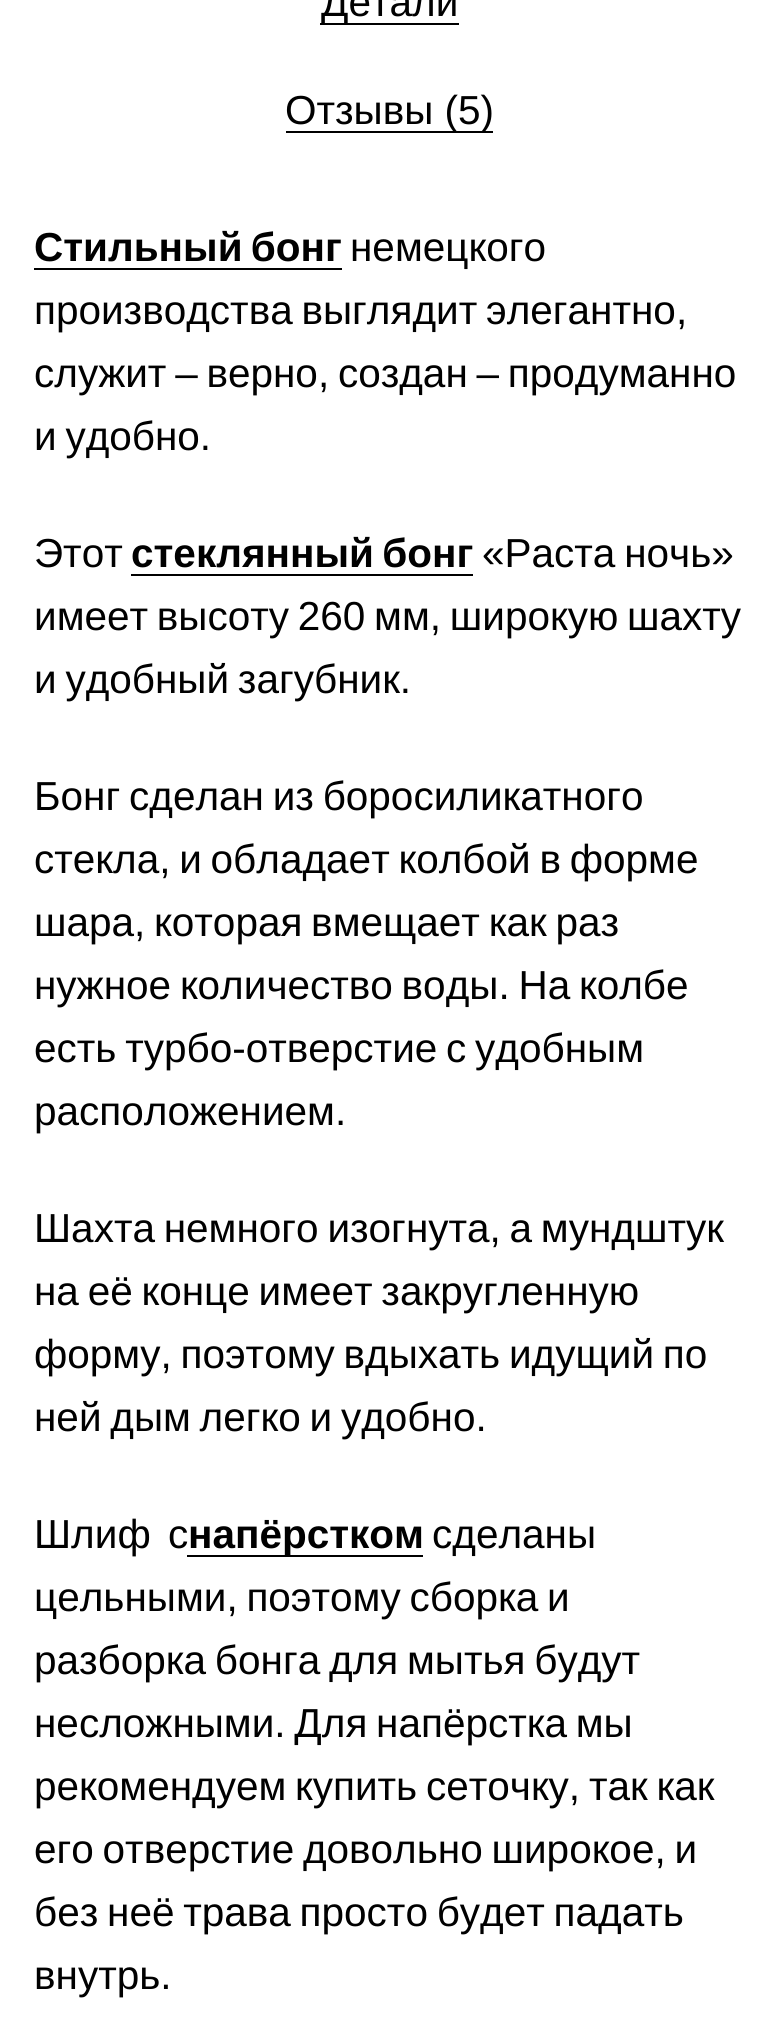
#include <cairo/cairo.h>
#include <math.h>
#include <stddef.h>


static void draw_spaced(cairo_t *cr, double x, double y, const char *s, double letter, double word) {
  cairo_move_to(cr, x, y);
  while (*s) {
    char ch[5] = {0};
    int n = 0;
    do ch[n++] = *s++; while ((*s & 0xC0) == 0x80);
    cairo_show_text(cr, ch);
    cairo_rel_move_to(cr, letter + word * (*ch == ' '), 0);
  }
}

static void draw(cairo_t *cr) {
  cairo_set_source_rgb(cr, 1, 1, 1);
  cairo_paint(cr);
  cairo_set_source_rgb(cr, 0, 0, 0);
  cairo_rectangle(cr, 320, 23, 139, 2);
  cairo_fill(cr);
  cairo_rectangle(cr, 286, 131, 207, 2);
  cairo_fill(cr);
  cairo_rectangle(cr, 34, 268, 308, 2);
  cairo_fill(cr);
  cairo_rectangle(cr, 131, 574, 342, 2);
  cairo_fill(cr);
  cairo_rectangle(cr, 187, 1555, 236, 2);
  cairo_fill(cr);
  cairo_select_font_face(cr, "Liberation Sans", CAIRO_FONT_SLANT_NORMAL, CAIRO_FONT_WEIGHT_NORMAL);
  cairo_set_font_size(cr, 40.5);
  cairo_move_to(cr, 321, 16);
  cairo_show_text(cr, "Детали");
  cairo_move_to(cr, 285, 124);
  cairo_show_text(cr, "Отзывы (5)");
  cairo_select_font_face(cr, "Liberation Sans", CAIRO_FONT_SLANT_NORMAL, CAIRO_FONT_WEIGHT_BOLD);
  draw_spaced(cr, 34, 261, "Стильный бонг", 0, -3);
  cairo_select_font_face(cr, "Liberation Sans", CAIRO_FONT_SLANT_NORMAL, CAIRO_FONT_WEIGHT_NORMAL);
  cairo_move_to(cr, 350, 261);
  cairo_show_text(cr, "немецкого");
  draw_spaced(cr, 34, 324, "производства выглядит элегантно,", 0, -2.5);
  draw_spaced(cr, 34, 387, "служит – верно, создан – продуманно", 0, -2.5);
  draw_spaced(cr, 34, 450, "и удобно.", 0, -2.5);
  cairo_move_to(cr, 34, 567);
  cairo_show_text(cr, "Этот");
  cairo_select_font_face(cr, "Liberation Sans", CAIRO_FONT_SLANT_NORMAL, CAIRO_FONT_WEIGHT_BOLD);
  draw_spaced(cr, 131, 567, "стеклянный бонг", 0, -3);
  cairo_select_font_face(cr, "Liberation Sans", CAIRO_FONT_SLANT_NORMAL, CAIRO_FONT_WEIGHT_NORMAL);
  draw_spaced(cr, 482, 567, "«Раста ночь»", 0, -2.5);
  draw_spaced(cr, 34, 630, "имеет высоту 260 мм, широкую шахту", 0, -2.5);
  draw_spaced(cr, 34, 693, "и удобный загубник.", 0, -2.5);
  draw_spaced(cr, 34, 810, "Бонг сделан из боросиликатного", 0, -2.5);
  draw_spaced(cr, 34, 873, "стекла, и обладает колбой в форме", 0, -2.5);
  draw_spaced(cr, 34, 936, "шара, которая вмещает как раз", 0, -2.5);
  draw_spaced(cr, 34, 999, "нужное количество воды. На колбе", 0, -2.5);
  draw_spaced(cr, 34, 1062, "есть турбо-отверстие с удобным", 0, -2.5);
  cairo_move_to(cr, 34, 1125);
  cairo_show_text(cr, "расположением.");
  draw_spaced(cr, 34, 1242, "Шахта немного изогнута, а мундштук", 0, -2.5);
  draw_spaced(cr, 34, 1305, "на её конце имеет закругленную", 0, -2.5);
  draw_spaced(cr, 34, 1368, "форму, поэтому вдыхать идущий по", 0, -2.5);
  draw_spaced(cr, 34, 1431, "ней дым легко и удобно.", 0, -2.5);
  draw_spaced(cr, 34, 1548, "Шлиф с", 0, 6);
  cairo_select_font_face(cr, "Liberation Sans", CAIRO_FONT_SLANT_NORMAL, CAIRO_FONT_WEIGHT_BOLD);
  cairo_move_to(cr, 188, 1548);
  cairo_show_text(cr, "напёрстком");
  cairo_select_font_face(cr, "Liberation Sans", CAIRO_FONT_SLANT_NORMAL, CAIRO_FONT_WEIGHT_NORMAL);
  cairo_move_to(cr, 432, 1548);
  cairo_show_text(cr, "сделаны");
  draw_spaced(cr, 34, 1611, "цельными, поэтому сборка и", 0, -2.5);
  draw_spaced(cr, 34, 1674, "разборка бонга для мытья будут", 0, -2.5);
  draw_spaced(cr, 34, 1737, "несложными. Для напёрстка мы", 0, -2.5);
  draw_spaced(cr, 34, 1800, "рекомендуем купить сеточку, так как", 0, -2.5);
  draw_spaced(cr, 34, 1863, "его отверстие довольно широкое, и", 0, -2.5);
  draw_spaced(cr, 34, 1926, "без неё трава просто будет падать", 0, -2.5);
  cairo_move_to(cr, 34, 1989);
  cairo_show_text(cr, "внутрь.");
}

int main(void) {
  cairo_surface_t *surface = cairo_image_surface_create(CAIRO_FORMAT_RGB24, 777, 2024);
  cairo_t *cr = cairo_create(surface);
  cairo_font_options_t *options = cairo_font_options_create();
  cairo_font_options_set_hint_metrics(options, CAIRO_HINT_METRICS_OFF);
  cairo_font_options_set_hint_style(options, CAIRO_HINT_STYLE_NONE);
  cairo_set_font_options(cr, options);
  cairo_set_miter_limit(cr, 4);
  draw(cr);
  cairo_surface_write_to_png(surface, "out.png");
  cairo_font_options_destroy(options);
  cairo_destroy(cr);
  cairo_surface_destroy(surface);
  return 0;
}
